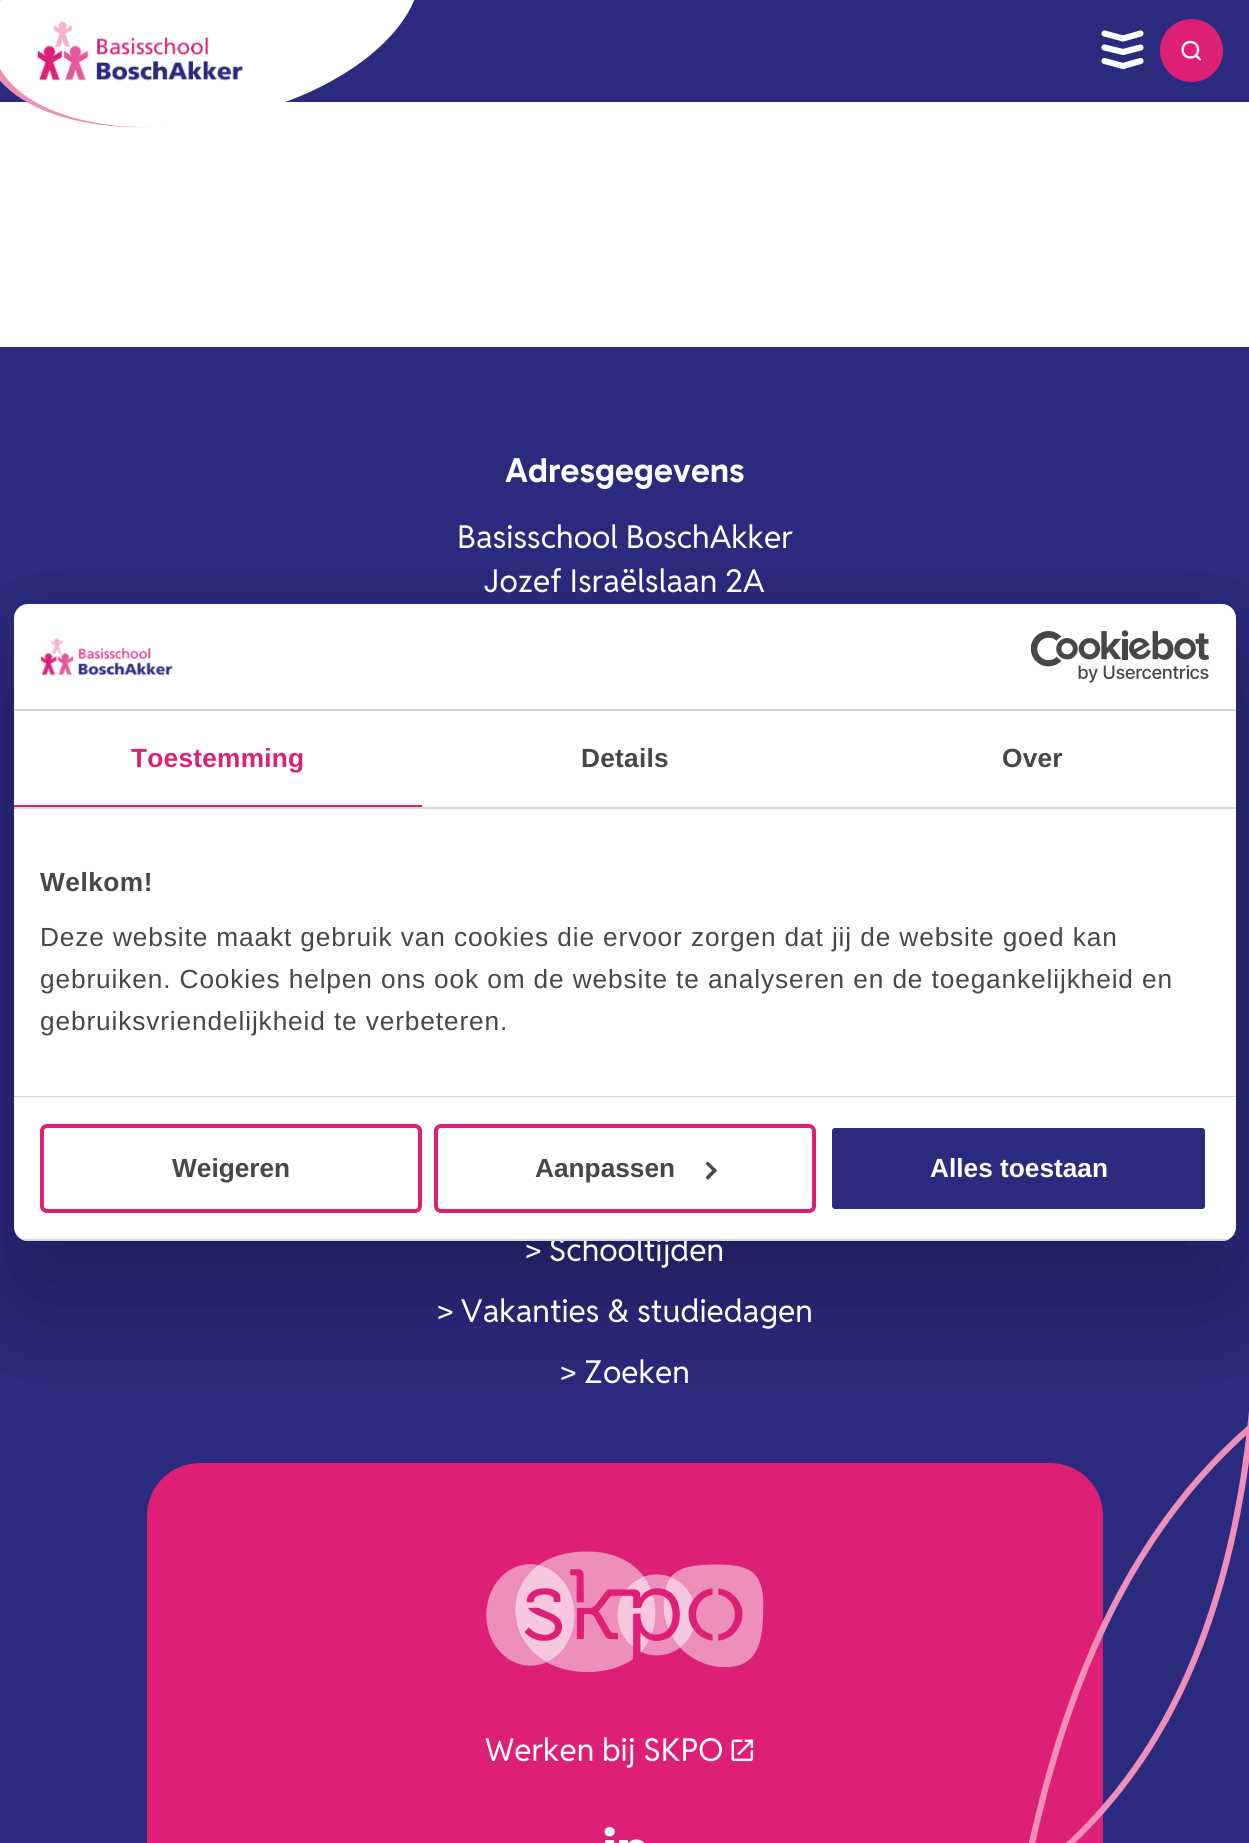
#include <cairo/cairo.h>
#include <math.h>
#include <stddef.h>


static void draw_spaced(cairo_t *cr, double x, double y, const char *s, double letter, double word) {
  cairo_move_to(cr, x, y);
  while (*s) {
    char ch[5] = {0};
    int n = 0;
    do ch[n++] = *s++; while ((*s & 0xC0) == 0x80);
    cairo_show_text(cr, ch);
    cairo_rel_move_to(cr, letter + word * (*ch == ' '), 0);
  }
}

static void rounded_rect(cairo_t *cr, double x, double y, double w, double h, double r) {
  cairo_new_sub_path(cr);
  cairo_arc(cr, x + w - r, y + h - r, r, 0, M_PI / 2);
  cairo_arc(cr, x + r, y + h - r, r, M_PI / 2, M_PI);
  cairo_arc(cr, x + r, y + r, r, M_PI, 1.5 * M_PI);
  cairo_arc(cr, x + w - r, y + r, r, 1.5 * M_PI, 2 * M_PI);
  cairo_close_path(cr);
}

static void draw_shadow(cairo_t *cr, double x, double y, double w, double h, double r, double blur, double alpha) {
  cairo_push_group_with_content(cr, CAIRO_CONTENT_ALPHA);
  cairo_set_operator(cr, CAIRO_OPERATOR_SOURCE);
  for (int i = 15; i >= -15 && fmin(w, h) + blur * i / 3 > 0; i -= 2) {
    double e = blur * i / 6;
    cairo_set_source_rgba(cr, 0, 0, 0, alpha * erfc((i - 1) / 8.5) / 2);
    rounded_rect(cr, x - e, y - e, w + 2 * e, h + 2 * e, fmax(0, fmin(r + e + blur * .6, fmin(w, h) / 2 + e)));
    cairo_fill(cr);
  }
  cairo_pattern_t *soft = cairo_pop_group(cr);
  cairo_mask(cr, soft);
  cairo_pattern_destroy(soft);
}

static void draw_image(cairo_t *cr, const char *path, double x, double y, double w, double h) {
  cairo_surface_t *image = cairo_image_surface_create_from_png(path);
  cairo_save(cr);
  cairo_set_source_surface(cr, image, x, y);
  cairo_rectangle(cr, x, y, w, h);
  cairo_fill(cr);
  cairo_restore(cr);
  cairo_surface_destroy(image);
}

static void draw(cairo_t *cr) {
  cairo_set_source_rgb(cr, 1, 1, 1);
  cairo_paint(cr);
  cairo_set_source_rgb(cr, 42 / 255.0, 42 / 255.0, 127 / 255.0);
  cairo_rectangle(cr, 0, 0, 1249, 102);
  cairo_fill(cr);
  cairo_set_source_rgb(cr, 238 / 255.0, 143 / 255.0, 186 / 255.0);
  cairo_new_path(cr);
  cairo_move_to(cr, 172, -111);
  cairo_curve_to(cr, 290, -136, 396, -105, 410, -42);
  cairo_curve_to(cr, 423, 21, 339, 93, 221, 118);
  cairo_curve_to(cr, 104, 144, -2, 113, -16, 50);
  cairo_curve_to(cr, -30, -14, 55, -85, 172, -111);
  cairo_close_path(cr);
  cairo_fill(cr);
  cairo_set_source_rgb(cr, 1, 1, 1);
  cairo_new_path(cr);
  cairo_move_to(cr, 181, -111);
  cairo_curve_to(cr, 299, -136, 405, -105, 419, -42);
  cairo_curve_to(cr, 432, 21, 348, 93, 230, 118);
  cairo_curve_to(cr, 113, 144, 6, 113, -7, 50);
  cairo_curve_to(cr, -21, -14, 63, -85, 181, -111);
  cairo_close_path(cr);
  cairo_fill(cr);
  draw_image(cr, "images/1.png", 37, 21, 206, 60);
  cairo_new_path(cr);
  cairo_move_to(cr, 1104.5, 61);
  cairo_line_to(cr, 1123, 66);
  cairo_line_to(cr, 1140.5, 61);
  cairo_move_to(cr, 1104.5, 47.5);
  cairo_line_to(cr, 1123, 52);
  cairo_line_to(cr, 1140.5, 47.5);
  cairo_move_to(cr, 1104.5, 33.5);
  cairo_line_to(cr, 1123, 38.5);
  cairo_line_to(cr, 1140.5, 33.5);
  cairo_set_line_width(cr, 6.1);
  cairo_set_line_cap(cr, CAIRO_LINE_CAP_ROUND);
  cairo_stroke(cr);
  cairo_set_source_rgb(cr, 221 / 255.0, 31 / 255.0, 118 / 255.0);
  cairo_arc(cr, 1191.5, 50.5, 31.5, 0, 2 * M_PI);
  cairo_fill(cr);
  cairo_new_path(cr);
  cairo_move_to(cr, 1190.5, 57.5);
  cairo_curve_to(cr, 1200.5, 57.5, 1200.5, 42, 1190.5, 42);
  cairo_curve_to(cr, 1180, 42, 1180, 57.5, 1190.5, 57.5);
  cairo_close_path(cr);
  cairo_move_to(cr, 1200, 59.5);
  cairo_line_to(cr, 1196, 55.5);
  cairo_set_source_rgb(cr, 1, 1, 1);
  cairo_set_line_width(cr, 2.3);
  cairo_set_line_join(cr, CAIRO_LINE_JOIN_ROUND);
  cairo_stroke(cr);
  cairo_set_source_rgb(cr, 42 / 255.0, 42 / 255.0, 127 / 255.0);
  cairo_rectangle(cr, 0, 347, 1249, 1496);
  cairo_fill(cr);
  cairo_set_source_rgb(cr, 221 / 255.0, 31 / 255.0, 118 / 255.0);
  cairo_new_path(cr);
  cairo_move_to(cr, 200, 1463);
  cairo_line_to(cr, 1050, 1463);
  cairo_curve_to(cr, 1079.5, 1463, 1103, 1486.5, 1103, 1516);
  cairo_line_to(cr, 1103, 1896);
  cairo_line_to(cr, 147, 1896);
  cairo_line_to(cr, 147, 1516);
  cairo_curve_to(cr, 147, 1486.5, 170.5, 1463, 200, 1463);
  cairo_close_path(cr);
  cairo_fill(cr);
  draw_image(cr, "images/2.png", 486, 1551, 278, 121);
  draw_image(cr, "images/3.png", 731, 1739, 23, 23);
  draw_image(cr, "images/4.png", 604, 1827, 40, 16);
  cairo_new_path(cr);
  cairo_move_to(cr, -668.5, 1120);
  cairo_curve_to(cr, -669.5, 1163.5, -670, 1208.5, -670, 1253.5);
  cairo_curve_to(cr, -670, 1584.5, -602.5, 1780, -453.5, 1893);
  cairo_curve_to(cr, -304.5, 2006, -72.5, 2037, 259, 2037);
  cairo_curve_to(cr, 590.5, 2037, 840.5, 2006, 1008, 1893);
  cairo_curve_to(cr, 1174.5, 1780, 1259.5, 1584.5, 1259.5, 1253.5);
  cairo_curve_to(cr, 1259.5, 1208.5, 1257, 1163.5, 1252.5, 1120);
  cairo_set_source_rgb(cr, 238 / 255.0, 143 / 255.0, 186 / 255.0);
  cairo_set_line_width(cr, 6.2);
  cairo_set_line_cap(cr, CAIRO_LINE_CAP_BUTT);
  cairo_set_line_join(cr, CAIRO_LINE_JOIN_MITER);
  cairo_stroke(cr);
  cairo_new_path(cr);
  cairo_move_to(cr, 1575.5, 1290);
  cairo_curve_to(cr, 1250.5, 1334.5, 1097, 1540.5, 1030, 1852.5);
  cairo_curve_to(cr, 998, 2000, 988.5, 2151.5, 984.5, 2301.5);
  cairo_stroke(cr);
  cairo_set_source_rgb(cr, 0, 0, 0);
  draw_shadow(cr, 14, 660, 1222, 637, 14, 59.5, 0.3);
  cairo_set_source_rgb(cr, 1, 1, 1);
  rounded_rect(cr, 14, 604, 1222, 637, 14);
  cairo_fill(cr);
  cairo_set_source_rgb(cr, 214 / 255.0, 214 / 255.0, 214 / 255.0);
  cairo_rectangle(cr, 14, 709, 1222, 2);
  cairo_fill(cr);
  draw_image(cr, "images/5.png", 40, 638, 133, 38);
  draw_image(cr, "images/6.png", 1031, 630, 178, 53);
  cairo_rectangle(cr, 14, 807, 1222, 2);
  cairo_fill(cr);
  cairo_set_source_rgb(cr, 221 / 255.0, 31 / 255.0, 118 / 255.0);
  cairo_rectangle(cr, 14, 805, 408, 2);
  cairo_fill(cr);
  cairo_set_source_rgb(cr, 214 / 255.0, 214 / 255.0, 214 / 255.0);
  cairo_rectangle(cr, 14, 1096, 1222, 1);
  cairo_fill(cr);
  rounded_rect(cr, 42, 1126, 378, 85, 5);
  cairo_set_source_rgb(cr, 221 / 255.0, 31 / 255.0, 118 / 255.0);
  cairo_set_line_width(cr, 4);
  cairo_stroke(cr);
  rounded_rect(cr, 436, 1126, 378, 85, 5);
  cairo_stroke(cr);
  cairo_set_source_rgb(cr, 71 / 255.0, 71 / 255.0, 71 / 255.0);
  cairo_new_path(cr);
  cairo_move_to(cr, 708, 1161.5);
  cairo_line_to(cr, 717, 1170.5);
  cairo_line_to(cr, 714.5, 1173);
  cairo_line_to(cr, 705.5, 1163.5);
  cairo_close_path(cr);
  cairo_fill(cr);
  cairo_new_path(cr);
  cairo_move_to(cr, 714.5, 1168);
  cairo_line_to(cr, 717, 1170.5);
  cairo_line_to(cr, 708, 1180);
  cairo_line_to(cr, 705.5, 1177.5);
  cairo_close_path(cr);
  cairo_fill(cr);
  cairo_set_source_rgb(cr, 42 / 255.0, 42 / 255.0, 127 / 255.0);
  rounded_rect(cr, 830, 1126, 377, 85, 5);
  cairo_fill_preserve(cr);
  cairo_set_source_rgb(cr, 1, 1, 1);
  cairo_stroke(cr);
  cairo_select_font_face(cr, "Gabarito SemiBold", CAIRO_FONT_SLANT_NORMAL, CAIRO_FONT_WEIGHT_NORMAL);
  cairo_set_font_size(cr, 35);
  cairo_move_to(cr, 505, 482);
  cairo_show_text(cr, "Adresgegevens");
  cairo_select_font_face(cr, "Reddit Sans", CAIRO_FONT_SLANT_NORMAL, CAIRO_FONT_WEIGHT_NORMAL);
  cairo_set_font_size(cr, 31.5);
  cairo_move_to(cr, 457, 548);
  cairo_show_text(cr, "Basisschool BoschAkker");
  cairo_move_to(cr, 484, 592);
  cairo_show_text(cr, "Jozef Israëlslaan 2A");
  cairo_move_to(cr, 525, 1261);
  cairo_show_text(cr, "> Schooltijden");
  cairo_move_to(cr, 437, 1322);
  cairo_show_text(cr, "> Vakanties & studiedagen");
  cairo_move_to(cr, 560, 1383);
  cairo_show_text(cr, "> Zoeken");
  cairo_move_to(cr, 485, 1761);
  cairo_show_text(cr, "Werken bij SKPO");
  cairo_select_font_face(cr, "Liberation Sans", CAIRO_FONT_SLANT_NORMAL, CAIRO_FONT_WEIGHT_BOLD);
  cairo_set_font_size(cr, 26.25);
  cairo_set_source_rgb(cr, 221 / 255.0, 31 / 255.0, 118 / 255.0);
  draw_spaced(cr, 131, 767, "Toestemming", 0.25, 0);
  cairo_set_source_rgb(cr, 71 / 255.0, 71 / 255.0, 71 / 255.0);
  draw_spaced(cr, 581, 767, "Details", 0.25, 0);
  draw_spaced(cr, 1002, 767, "Over", 0.25, 0);
  draw_spaced(cr, 40, 891, "Welkom!", 0.5, 0);
  cairo_select_font_face(cr, "Liberation Sans", CAIRO_FONT_SLANT_NORMAL, CAIRO_FONT_WEIGHT_NORMAL);
  draw_spaced(cr, 40, 946, "Deze website maakt gebruik van cookies die ervoor zorgen dat jij de website goed kan", 0.88, 0);
  draw_spaced(cr, 40, 988, "gebruiken. Cookies helpen ons ook om de website te analyseren en de toegankelijkheid en", 0.88, 0);
  draw_spaced(cr, 40, 1030, "gebruiksvriendelijkheid te verbeteren.", 0.88, 0);
  cairo_save(cr);
  rounded_rect(cr, 14, 604, 1222, 637, 14);
  cairo_clip(cr);
  cairo_set_source_rgb(cr, 214 / 255.0, 214 / 255.0, 214 / 255.0);
  cairo_rectangle(cr, 14, 1239, 1222, 2);
  cairo_fill(cr);
  cairo_restore(cr);
  cairo_select_font_face(cr, "Liberation Sans", CAIRO_FONT_SLANT_NORMAL, CAIRO_FONT_WEIGHT_BOLD);
  cairo_move_to(cr, 172, 1177);
  cairo_show_text(cr, "Weigeren");
  cairo_move_to(cr, 535, 1177);
  cairo_show_text(cr, "Aanpassen");
  cairo_set_source_rgb(cr, 1, 1, 1);
  cairo_move_to(cr, 930, 1177);
  cairo_show_text(cr, "Alles toestaan");
}

int main(void) {
  cairo_surface_t *surface = cairo_image_surface_create(CAIRO_FORMAT_RGB24, 1249, 1843);
  cairo_t *cr = cairo_create(surface);
  cairo_font_options_t *options = cairo_font_options_create();
  cairo_font_options_set_hint_metrics(options, CAIRO_HINT_METRICS_OFF);
  cairo_font_options_set_hint_style(options, CAIRO_HINT_STYLE_NONE);
  cairo_set_font_options(cr, options);
  cairo_set_miter_limit(cr, 4);
  draw(cr);
  cairo_surface_write_to_png(surface, "out.png");
  cairo_font_options_destroy(options);
  cairo_destroy(cr);
  cairo_surface_destroy(surface);
  return 0;
}
